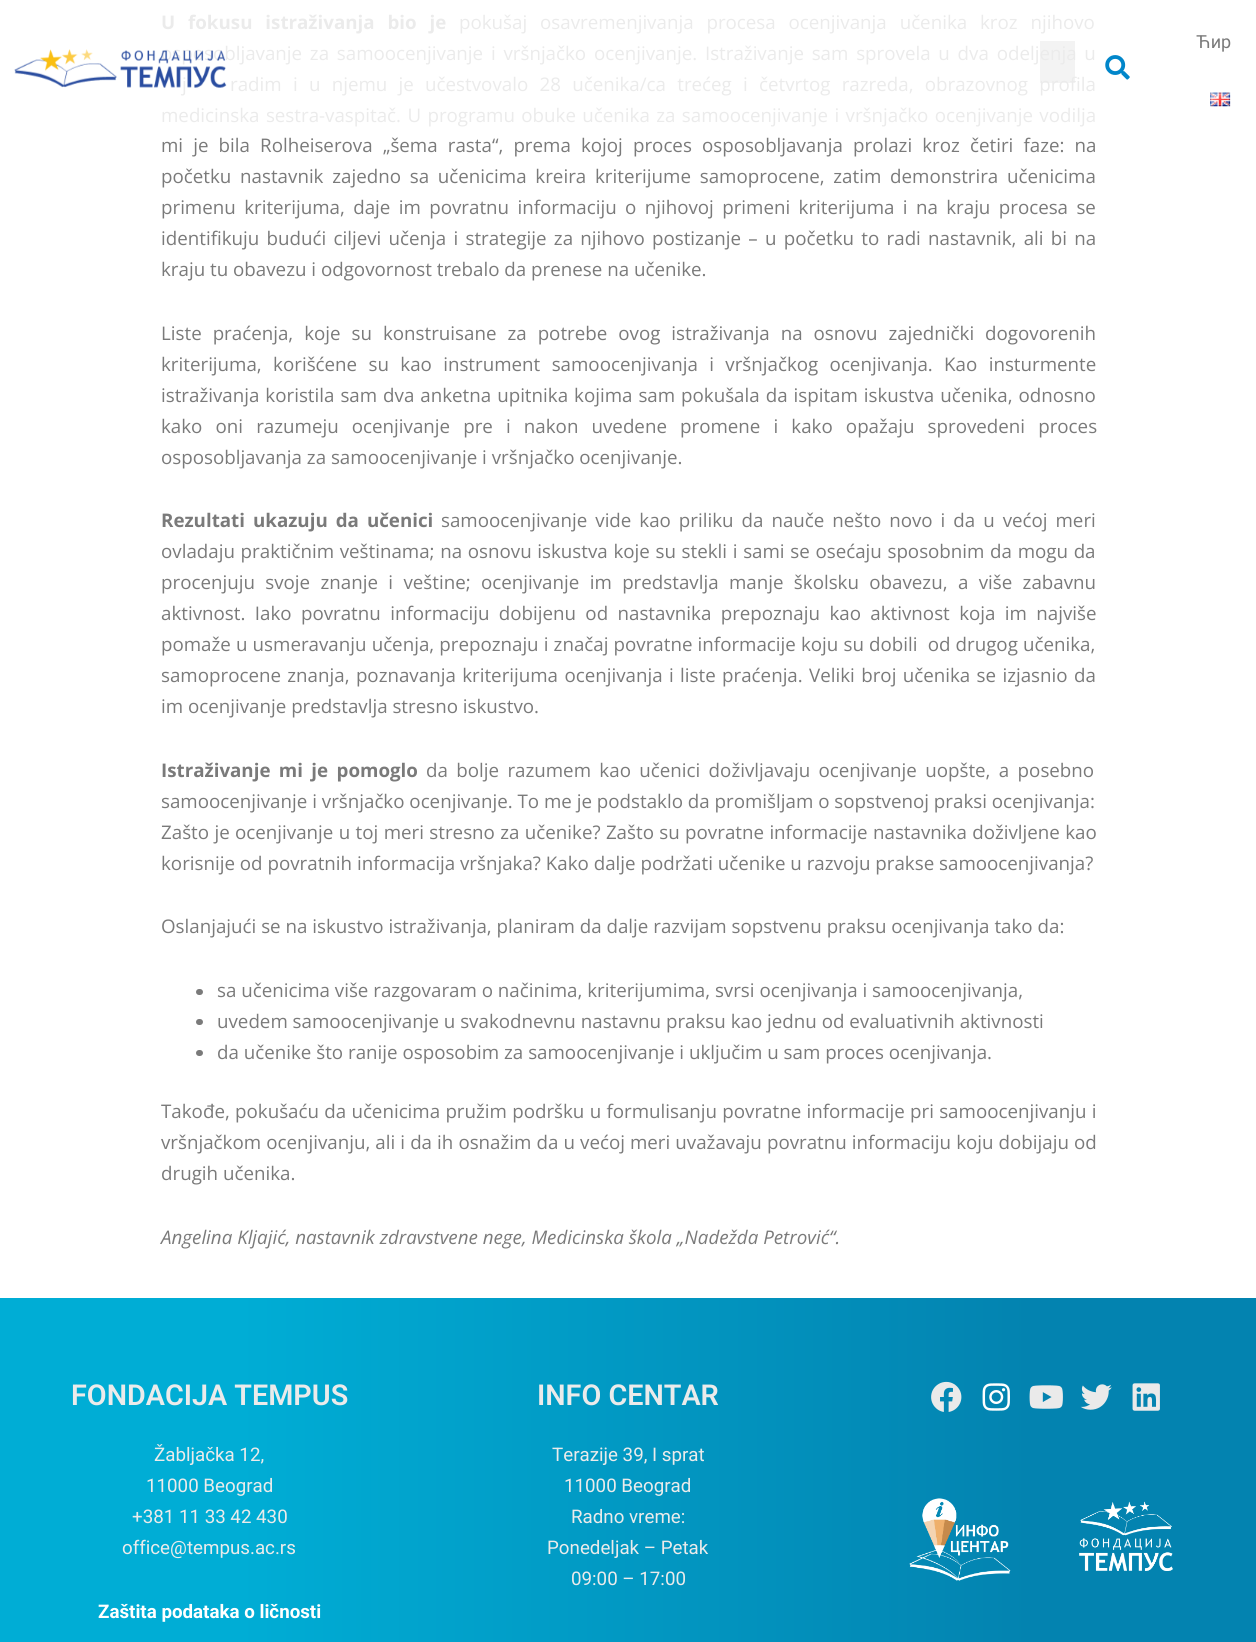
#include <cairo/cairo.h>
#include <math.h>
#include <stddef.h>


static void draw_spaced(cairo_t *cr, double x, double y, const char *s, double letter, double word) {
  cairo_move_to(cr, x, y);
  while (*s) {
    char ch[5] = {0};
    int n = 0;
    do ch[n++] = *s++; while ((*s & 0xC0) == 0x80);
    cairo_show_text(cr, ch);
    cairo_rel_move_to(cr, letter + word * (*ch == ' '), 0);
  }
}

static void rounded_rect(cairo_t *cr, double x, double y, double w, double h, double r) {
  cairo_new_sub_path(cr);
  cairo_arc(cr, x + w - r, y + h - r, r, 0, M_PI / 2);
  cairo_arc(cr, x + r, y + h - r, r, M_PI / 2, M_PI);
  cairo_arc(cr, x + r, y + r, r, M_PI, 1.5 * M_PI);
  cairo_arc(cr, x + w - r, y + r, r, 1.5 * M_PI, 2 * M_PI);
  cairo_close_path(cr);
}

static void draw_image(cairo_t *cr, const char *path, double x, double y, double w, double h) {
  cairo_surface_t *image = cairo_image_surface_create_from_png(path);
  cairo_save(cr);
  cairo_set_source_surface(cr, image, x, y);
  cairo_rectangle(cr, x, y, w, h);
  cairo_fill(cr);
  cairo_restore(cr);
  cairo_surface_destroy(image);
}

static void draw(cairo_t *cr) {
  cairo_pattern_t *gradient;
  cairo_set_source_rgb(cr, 1, 1, 1);
  cairo_paint(cr);
  cairo_set_source_rgb(cr, 122 / 255.0, 122 / 255.0, 122 / 255.0);
  rounded_rect(cr, 196, 989, 7, 6, 3);
  cairo_fill(cr);
  rounded_rect(cr, 196, 1019, 7, 6, 3);
  cairo_fill(cr);
  rounded_rect(cr, 196, 1050, 7, 6, 3);
  cairo_fill(cr);
  cairo_set_source_rgba(cr, 0, 0, 0, 0.05);
  cairo_rectangle(cr, 1040, 41, 35, 42);
  cairo_fill(cr);
  draw_image(cr, "images/2.png", 1105, 55, 25, 25);
  draw_image(cr, "images/3.png", 1210, 92, 21, 15);
  gradient = cairo_pattern_create_linear(0, 1498, 1256, 1498);
  cairo_pattern_add_color_stop_rgba(gradient, 0.19, 0, 173 / 255.0, 213 / 255.0, 1);
  cairo_pattern_add_color_stop_rgba(gradient, 0.82, 3 / 255.0, 131 / 255.0, 176 / 255.0, 1);
  cairo_set_source(cr, gradient);
  cairo_pattern_destroy(gradient);
  cairo_rectangle(cr, 0, 1298, 1256, 344);
  cairo_fill(cr);
  draw_image(cr, "images/4.png", 931, 1381, 31, 31);
  draw_image(cr, "images/5.png", 982, 1383, 28, 28);
  draw_image(cr, "images/6.png", 1029, 1385, 34, 24);
  draw_image(cr, "images/7.png", 1080, 1384, 32, 26);
  draw_image(cr, "images/8.png", 1132, 1383, 28, 28);
  draw_image(cr, "images/9.png", 909, 1498, 102, 83);
  draw_image(cr, "images/10.png", 1079, 1501, 94, 70);
  cairo_select_font_face(cr, "Open Sans", CAIRO_FONT_SLANT_NORMAL, CAIRO_FONT_WEIGHT_BOLD);
  cairo_set_font_size(cr, 18.75);
  cairo_set_source_rgb(cr, 235 / 255.0, 235 / 255.0, 235 / 255.0);
  cairo_move_to(cr, 161, 29);
  cairo_show_text(cr, "U");
  draw_spaced(cr, 188, 29, "fokusu istraživanja bio je", 0, 8);
  cairo_select_font_face(cr, "Open Sans", CAIRO_FONT_SLANT_NORMAL, CAIRO_FONT_WEIGHT_NORMAL);
  draw_spaced(cr, 459, 29, "pokušaj osavremenjivanja procesa ocenjivanja učenika kroz njihovo", 0, 8);
  draw_spaced(cr, 161, 60, "osposobljavanje za samoocenjivanje i vršnjačko ocenjivanje. Istraživanje sam sprovela u dva odeljenja u", 0, 2.9);
  draw_spaced(cr, 182, 91, "j", 0, 6.4);
  draw_spaced(cr, 230, 91, "radim i u njemu je učestvovalo 28 učenika/ca trećeg i četvrtog razreda, obrazovnog profila", 0, 6.4);
  draw_spaced(cr, 161, 122, "medicinska sestra-vaspitač. U programu obuke učenika za samoocenjivanje i vršnjačko ocenjivanje vodilja", 0, 1.5);
  cairo_set_source_rgb(cr, 122 / 255.0, 122 / 255.0, 122 / 255.0);
  draw_spaced(cr, 161, 152, "mi je bila Rolheiserova „šema rasta“, prema kojoj proces osposobljavanja prolazi kroz četiri faze: na", 0, 5.25);
  draw_spaced(cr, 161, 183, "početku nastavnik zajedno sa učenicima kreira kriterijume samoprocene, zatim demonstrira učenicima", 0, 3.9);
  draw_spaced(cr, 161, 214, "primenu kriterijuma, daje im povratnu informaciju o njihovoj primeni kriterijuma i na kraju procesa se", 0, 3.5);
  draw_spaced(cr, 161, 245, "identifikuju budući ciljevi učenja i strategije za njihovo postizanje – u početku to radi nastavnik, ali bi na", 0, 2.4);
  cairo_move_to(cr, 161, 276);
  cairo_show_text(cr, "kraju tu obavezu i odgovornost trebalo da prenese na učenike.");
  draw_spaced(cr, 161, 340, "Liste praćenja, koje su konstruisane za potrebe ovog istraživanja na osnovu zajednički dogovorenih", 0, 6.1);
  draw_spaced(cr, 161, 371, "kriterijuma, korišćene su kao instrument samoocenjivanja i vršnjačkog ocenjivanja. Kao insturmente", 0, 6.5);
  draw_spaced(cr, 161, 402, "istraživanja koristila sam dva anketna upitnika kojima sam pokušala da ispitam iskustva učenika, odnosno", 0, 1.1);
  draw_spaced(cr, 161, 433, "kako oni razumeju ocenjivanje pre i nakon uvedene promene i kako opažaju sprovedeni proces", 0, 8.25);
  cairo_move_to(cr, 161, 464);
  cairo_show_text(cr, "osposobljavanja za samoocenjivanje i vršnjačko ocenjivanje.");
  cairo_select_font_face(cr, "Open Sans", CAIRO_FONT_SLANT_NORMAL, CAIRO_FONT_WEIGHT_BOLD);
  draw_spaced(cr, 161, 527, "Rezultati ukazuju da učenici", 0, 3.1);
  cairo_select_font_face(cr, "Open Sans", CAIRO_FONT_SLANT_NORMAL, CAIRO_FONT_WEIGHT_NORMAL);
  draw_spaced(cr, 441, 527, "samoocenjivanje vide kao priliku da nauče nešto novo i da u većoj meri", 0, 3.1);
  draw_spaced(cr, 161, 558, "ovladaju praktičnim veštinama; na osnovu iskustva koje su stekli i sami se osećaju sposobnim da mogu da", 0, 0.8);
  draw_spaced(cr, 161, 589, "procenjuju svoje znanje i veštine; ocenjivanje im predstavlja manje školsku obavezu, a više zabavnu", 0, 5.5);
  draw_spaced(cr, 161, 620, "aktivnost. Iako povratnu informaciju dobijenu od nastavnika prepoznaju kao aktivnost koja im najviše", 0, 4.5);
  draw_spaced(cr, 161, 651, "pomaže u usmeravanju učenja, prepoznaju i značaj povratne informacije koju su dobili  od drugog učenika,", 0, 0.25);
  draw_spaced(cr, 161, 682, "samoprocene znanja, poznavanja kriterijuma ocenjivanja i liste praćenja. Veliki broj učenika se izjasnio da", 0, 1.5);
  cairo_move_to(cr, 161, 713);
  cairo_show_text(cr, "im ocenjivanje predstavlja stresno iskustvo.");
  cairo_select_font_face(cr, "Open Sans", CAIRO_FONT_SLANT_NORMAL, CAIRO_FONT_WEIGHT_BOLD);
  draw_spaced(cr, 161, 777, "Istraživanje mi je pomoglo", 0, 3.5);
  cairo_select_font_face(cr, "Open Sans", CAIRO_FONT_SLANT_NORMAL, CAIRO_FONT_WEIGHT_NORMAL);
  draw_spaced(cr, 426, 777, "da bolje razumem kao učenici doživljavaju ocenjivanje uopšte, a posebno", 0, 3.5);
  cairo_move_to(cr, 161, 808);
  cairo_show_text(cr, "samoocenjivanje i vršnjačko ocenjivanje. To me je podstaklo da promišljam o sopstvenoj praksi ocenjivanja:");
  draw_spaced(cr, 161, 839, "Zašto je ocenjivanje u toj meri stresno za učenike? Zašto su povratne informacije nastavnika doživljene kao", 0, 0.5);
  cairo_move_to(cr, 161, 870);
  cairo_show_text(cr, "korisnije od povratnih informacija vršnjaka? Kako dalje podržati učenike u razvoju prakse samoocenjivanja?");
  cairo_move_to(cr, 161, 933);
  cairo_show_text(cr, "Oslanjajući se na iskustvo istraživanja, planiram da dalje razvijam sopstvenu praksu ocenjivanja tako da:");
  cairo_move_to(cr, 217, 997);
  cairo_show_text(cr, "sa učenicima više razgovaram o načinima, kriterijumima, svrsi ocenjivanja i samoocenjivanja,");
  cairo_move_to(cr, 217, 1028);
  cairo_show_text(cr, "uvedem samoocenjivanje u svakodnevnu nastavnu praksu kao jednu od evaluativnih aktivnosti");
  cairo_move_to(cr, 217, 1059);
  cairo_show_text(cr, "da učenike što ranije osposobim za samoocenjivanje i uključim u sam proces ocenjivanja.");
  draw_spaced(cr, 161, 1118, "Takođe, pokušaću da učenicima pružim podršku u formulisanju povratne informacije pri samoocenjivanju i", 0, 0.4);
  draw_spaced(cr, 161, 1149, "vršnjačkom ocenjivanju, ali i da ih osnažim da u većoj meri uvažavaju povratnu informaciju koju dobijaju od", 0, 0.2);
  cairo_move_to(cr, 161, 1180);
  cairo_show_text(cr, "drugih učenika.");
  cairo_select_font_face(cr, "Open Sans", CAIRO_FONT_SLANT_ITALIC, CAIRO_FONT_WEIGHT_NORMAL);
  cairo_move_to(cr, 161, 1244);
  cairo_show_text(cr, "Angelina Kljajić, nastavnik zdravstvene nege, Medicinska škola „Nadežda Petrović“.");
  draw_image(cr, "images/1.png", 14, 49, 213, 39);
  cairo_select_font_face(cr, "Roboto", CAIRO_FONT_SLANT_NORMAL, CAIRO_FONT_WEIGHT_NORMAL);
  cairo_set_font_size(cr, 18);
  cairo_move_to(cr, 1196, 48);
  cairo_show_text(cr, "Ћир");
  cairo_select_font_face(cr, "Roboto SemiBold", CAIRO_FONT_SLANT_NORMAL, CAIRO_FONT_WEIGHT_NORMAL);
  cairo_set_font_size(cr, 28.75);
  cairo_set_source_rgb(cr, 235 / 255.0, 235 / 255.0, 235 / 255.0);
  cairo_move_to(cr, 71, 1405);
  cairo_show_text(cr, "FONDACIJA TEMPUS");
  cairo_select_font_face(cr, "Roboto", CAIRO_FONT_SLANT_NORMAL, CAIRO_FONT_WEIGHT_NORMAL);
  cairo_set_font_size(cr, 18.75);
  cairo_move_to(cr, 154, 1461);
  cairo_show_text(cr, "Žabljačka 12,");
  cairo_move_to(cr, 146, 1492);
  cairo_show_text(cr, "11000 Beograd");
  cairo_move_to(cr, 132, 1523);
  cairo_show_text(cr, "+381 11 33 42 430");
  cairo_move_to(cr, 122, 1554);
  cairo_show_text(cr, "office@tempus.ac.rs");
  cairo_select_font_face(cr, "Roboto", CAIRO_FONT_SLANT_NORMAL, CAIRO_FONT_WEIGHT_BOLD);
  cairo_set_source_rgb(cr, 1, 1, 1);
  cairo_move_to(cr, 98, 1618);
  cairo_show_text(cr, "Zaštita podataka o ličnosti");
  cairo_select_font_face(cr, "Roboto SemiBold", CAIRO_FONT_SLANT_NORMAL, CAIRO_FONT_WEIGHT_NORMAL);
  cairo_set_font_size(cr, 28.75);
  cairo_set_source_rgb(cr, 235 / 255.0, 235 / 255.0, 235 / 255.0);
  cairo_move_to(cr, 537, 1405);
  cairo_show_text(cr, "INFO CENTAR");
  cairo_select_font_face(cr, "Roboto", CAIRO_FONT_SLANT_NORMAL, CAIRO_FONT_WEIGHT_NORMAL);
  cairo_set_font_size(cr, 18.75);
  cairo_move_to(cr, 552, 1461);
  cairo_show_text(cr, "Terazije 39, I sprat");
  cairo_move_to(cr, 564, 1492);
  cairo_show_text(cr, "11000 Beograd");
  cairo_move_to(cr, 571, 1523);
  cairo_show_text(cr, "Radno vreme:");
  cairo_move_to(cr, 547, 1554);
  cairo_show_text(cr, "Ponedeljak – Petak");
  cairo_move_to(cr, 571, 1585);
  cairo_show_text(cr, "09:00 – 17:00");
}

int main(void) {
  cairo_surface_t *surface = cairo_image_surface_create(CAIRO_FORMAT_RGB24, 1256, 1642);
  cairo_t *cr = cairo_create(surface);
  cairo_font_options_t *options = cairo_font_options_create();
  cairo_font_options_set_hint_metrics(options, CAIRO_HINT_METRICS_OFF);
  cairo_font_options_set_hint_style(options, CAIRO_HINT_STYLE_NONE);
  cairo_set_font_options(cr, options);
  cairo_set_miter_limit(cr, 4);
  draw(cr);
  cairo_surface_write_to_png(surface, "out.png");
  cairo_font_options_destroy(options);
  cairo_destroy(cr);
  cairo_surface_destroy(surface);
  return 0;
}
